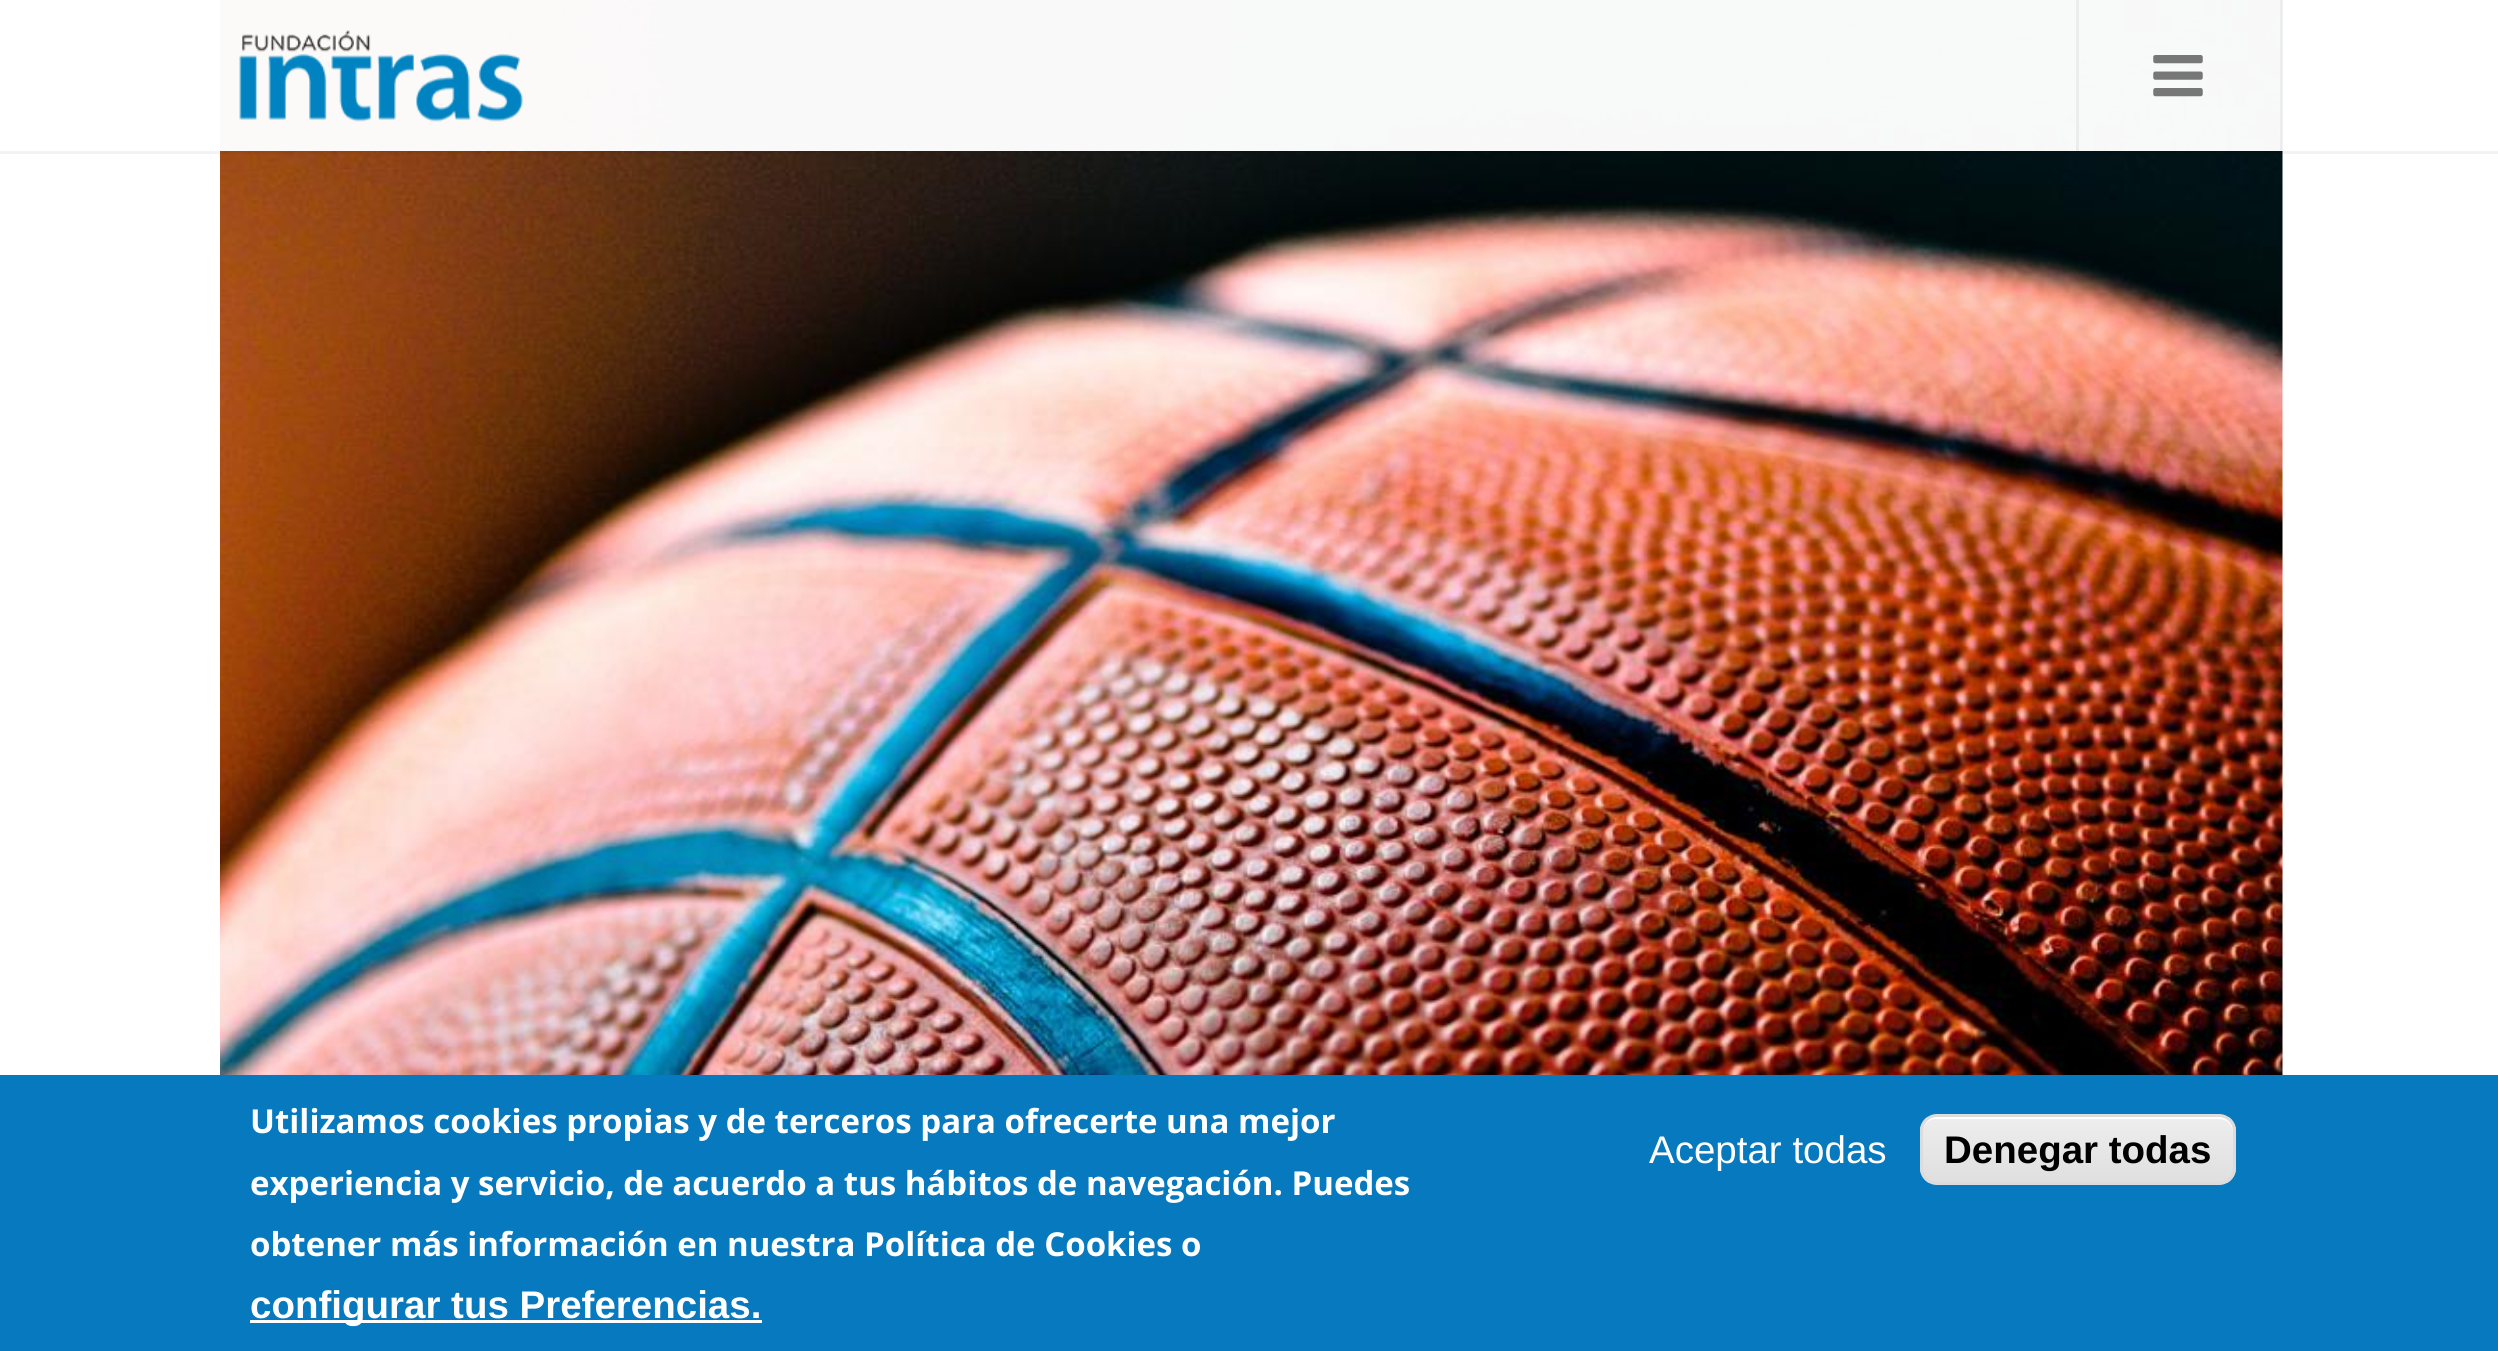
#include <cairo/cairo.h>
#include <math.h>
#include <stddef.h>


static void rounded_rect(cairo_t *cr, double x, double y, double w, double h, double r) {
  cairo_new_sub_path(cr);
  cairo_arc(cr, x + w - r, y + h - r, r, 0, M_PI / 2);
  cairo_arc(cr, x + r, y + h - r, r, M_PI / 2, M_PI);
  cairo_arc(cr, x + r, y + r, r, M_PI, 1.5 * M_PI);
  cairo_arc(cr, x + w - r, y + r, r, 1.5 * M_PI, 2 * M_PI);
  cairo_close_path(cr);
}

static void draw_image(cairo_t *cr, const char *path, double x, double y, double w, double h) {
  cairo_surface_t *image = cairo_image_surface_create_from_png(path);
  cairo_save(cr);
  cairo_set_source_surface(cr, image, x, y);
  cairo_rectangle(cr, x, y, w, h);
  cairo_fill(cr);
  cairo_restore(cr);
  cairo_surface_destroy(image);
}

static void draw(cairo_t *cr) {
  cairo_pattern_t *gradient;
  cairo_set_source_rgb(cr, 1, 1, 1);
  cairo_paint(cr);
  draw_image(cr, "images/3.png", 220, 0, 2063, 1075);
  cairo_set_source_rgba(cr, 0, 0, 0, 0.05);
  cairo_new_path(cr);
  cairo_move_to(cr, 0, 151);
  cairo_line_to(cr, 0, 154);
  cairo_line_to(cr, 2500, 154);
  cairo_line_to(cr, 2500, 3);
  cairo_line_to(cr, 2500, 151);
  cairo_close_path(cr);
  cairo_fill(cr);
  cairo_set_source_rgba(cr, 1, 1, 1, 0.97);
  cairo_rectangle(cr, 220, 0, 2063, 151);
  cairo_fill(cr);
  draw_image(cr, "images/1.png", 239, 30, 284, 92);
  cairo_set_source_rgba(cr, 0, 0, 0, 0.05);
  cairo_rectangle(cr, 2280, 0, 3, 151);
  cairo_fill(cr);
  cairo_set_source_rgb(cr, 235 / 255.0, 236 / 255.0, 236 / 255.0);
  cairo_rectangle(cr, 2076, 0, 3, 151);
  cairo_fill(cr);
  draw_image(cr, "images/2.png", 2153, 55, 50, 42);
  cairo_set_source_rgb(cr, 7 / 255.0, 121 / 255.0, 191 / 255.0);
  cairo_rectangle(cr, 0, 1075, 2498, 276);
  cairo_fill(cr);
  cairo_set_source_rgb(cr, 1, 1, 1);
  cairo_rectangle(cr, 250, 1320, 512, 3);
  cairo_fill(cr);
  cairo_save(cr);
  rounded_rect(cr, 1920, 1114, 316, 71, 17);
  cairo_clip(cr);
  gradient = cairo_pattern_create_linear(2078, 1117, 2078, 1183);
  cairo_pattern_add_color_stop_rgba(gradient, 0.05, 237 / 255.0, 237 / 255.0, 237 / 255.0, 1);
  cairo_pattern_add_color_stop_rgba(gradient, 1, 223 / 255.0, 223 / 255.0, 223 / 255.0, 1);
  cairo_set_source(cr, gradient);
  cairo_pattern_destroy(gradient);
  cairo_rectangle(cr, 1920, 1117, 316, 66);
  cairo_fill(cr);
  cairo_restore(cr);
  cairo_new_path(cr);
  cairo_move_to(cr, 1936, 1119);
  cairo_line_to(cr, 2219, 1119);
  cairo_curve_to(cr, 2227, 1119, 2233, 1125, 2233, 1133);
  cairo_line_to(cr, 2233, 1131);
  cairo_curve_to(cr, 2233, 1123, 2227, 1117, 2219, 1117);
  cairo_line_to(cr, 1936, 1117);
  cairo_curve_to(cr, 1928, 1117, 1922, 1123, 1922, 1131);
  cairo_line_to(cr, 1922, 1133);
  cairo_curve_to(cr, 1922, 1125, 1928, 1119, 1936, 1119);
  cairo_close_path(cr);
  cairo_fill(cr);
  rounded_rect(cr, 1921.5, 1115.5, 313, 68, 15.5);
  cairo_set_source_rgb(cr, 220 / 255.0, 220 / 255.0, 220 / 255.0);
  cairo_set_line_width(cr, 3);
  cairo_stroke(cr);
  cairo_select_font_face(cr, "Open Sans", CAIRO_FONT_SLANT_NORMAL, CAIRO_FONT_WEIGHT_BOLD);
  cairo_set_font_size(cr, 33);
  cairo_set_source_rgb(cr, 1, 1, 1);
  cairo_move_to(cr, 250, 1133);
  cairo_show_text(cr, "Utilizamos cookies propias y de terceros para ofrecerte una mejor");
  cairo_move_to(cr, 250, 1195);
  cairo_show_text(cr, "experiencia y servicio, de acuerdo a tus hábitos de navegación. Puedes");
  cairo_move_to(cr, 250, 1256);
  cairo_show_text(cr, "obtener más información en nuestra Política de Cookies o");
  cairo_select_font_face(cr, "Liberation Sans", CAIRO_FONT_SLANT_NORMAL, CAIRO_FONT_WEIGHT_BOLD);
  cairo_set_font_size(cr, 38.5);
  cairo_move_to(cr, 250, 1318);
  cairo_show_text(cr, "configurar tus Preferencias.");
  cairo_select_font_face(cr, "Liberation Sans", CAIRO_FONT_SLANT_NORMAL, CAIRO_FONT_WEIGHT_NORMAL);
  cairo_move_to(cr, 1649, 1163);
  cairo_show_text(cr, "Aceptar todas");
  cairo_select_font_face(cr, "Liberation Sans", CAIRO_FONT_SLANT_NORMAL, CAIRO_FONT_WEIGHT_BOLD);
  cairo_set_source_rgb(cr, 0, 0, 0);
  cairo_move_to(cr, 1944, 1163);
  cairo_show_text(cr, "Denegar todas");
}

int main(void) {
  cairo_surface_t *surface = cairo_image_surface_create(CAIRO_FORMAT_RGB24, 2498, 1351);
  cairo_t *cr = cairo_create(surface);
  cairo_font_options_t *options = cairo_font_options_create();
  cairo_font_options_set_hint_metrics(options, CAIRO_HINT_METRICS_OFF);
  cairo_font_options_set_hint_style(options, CAIRO_HINT_STYLE_NONE);
  cairo_set_font_options(cr, options);
  cairo_set_miter_limit(cr, 4);
  draw(cr);
  cairo_surface_write_to_png(surface, "out.png");
  cairo_font_options_destroy(options);
  cairo_destroy(cr);
  cairo_surface_destroy(surface);
  return 0;
}
